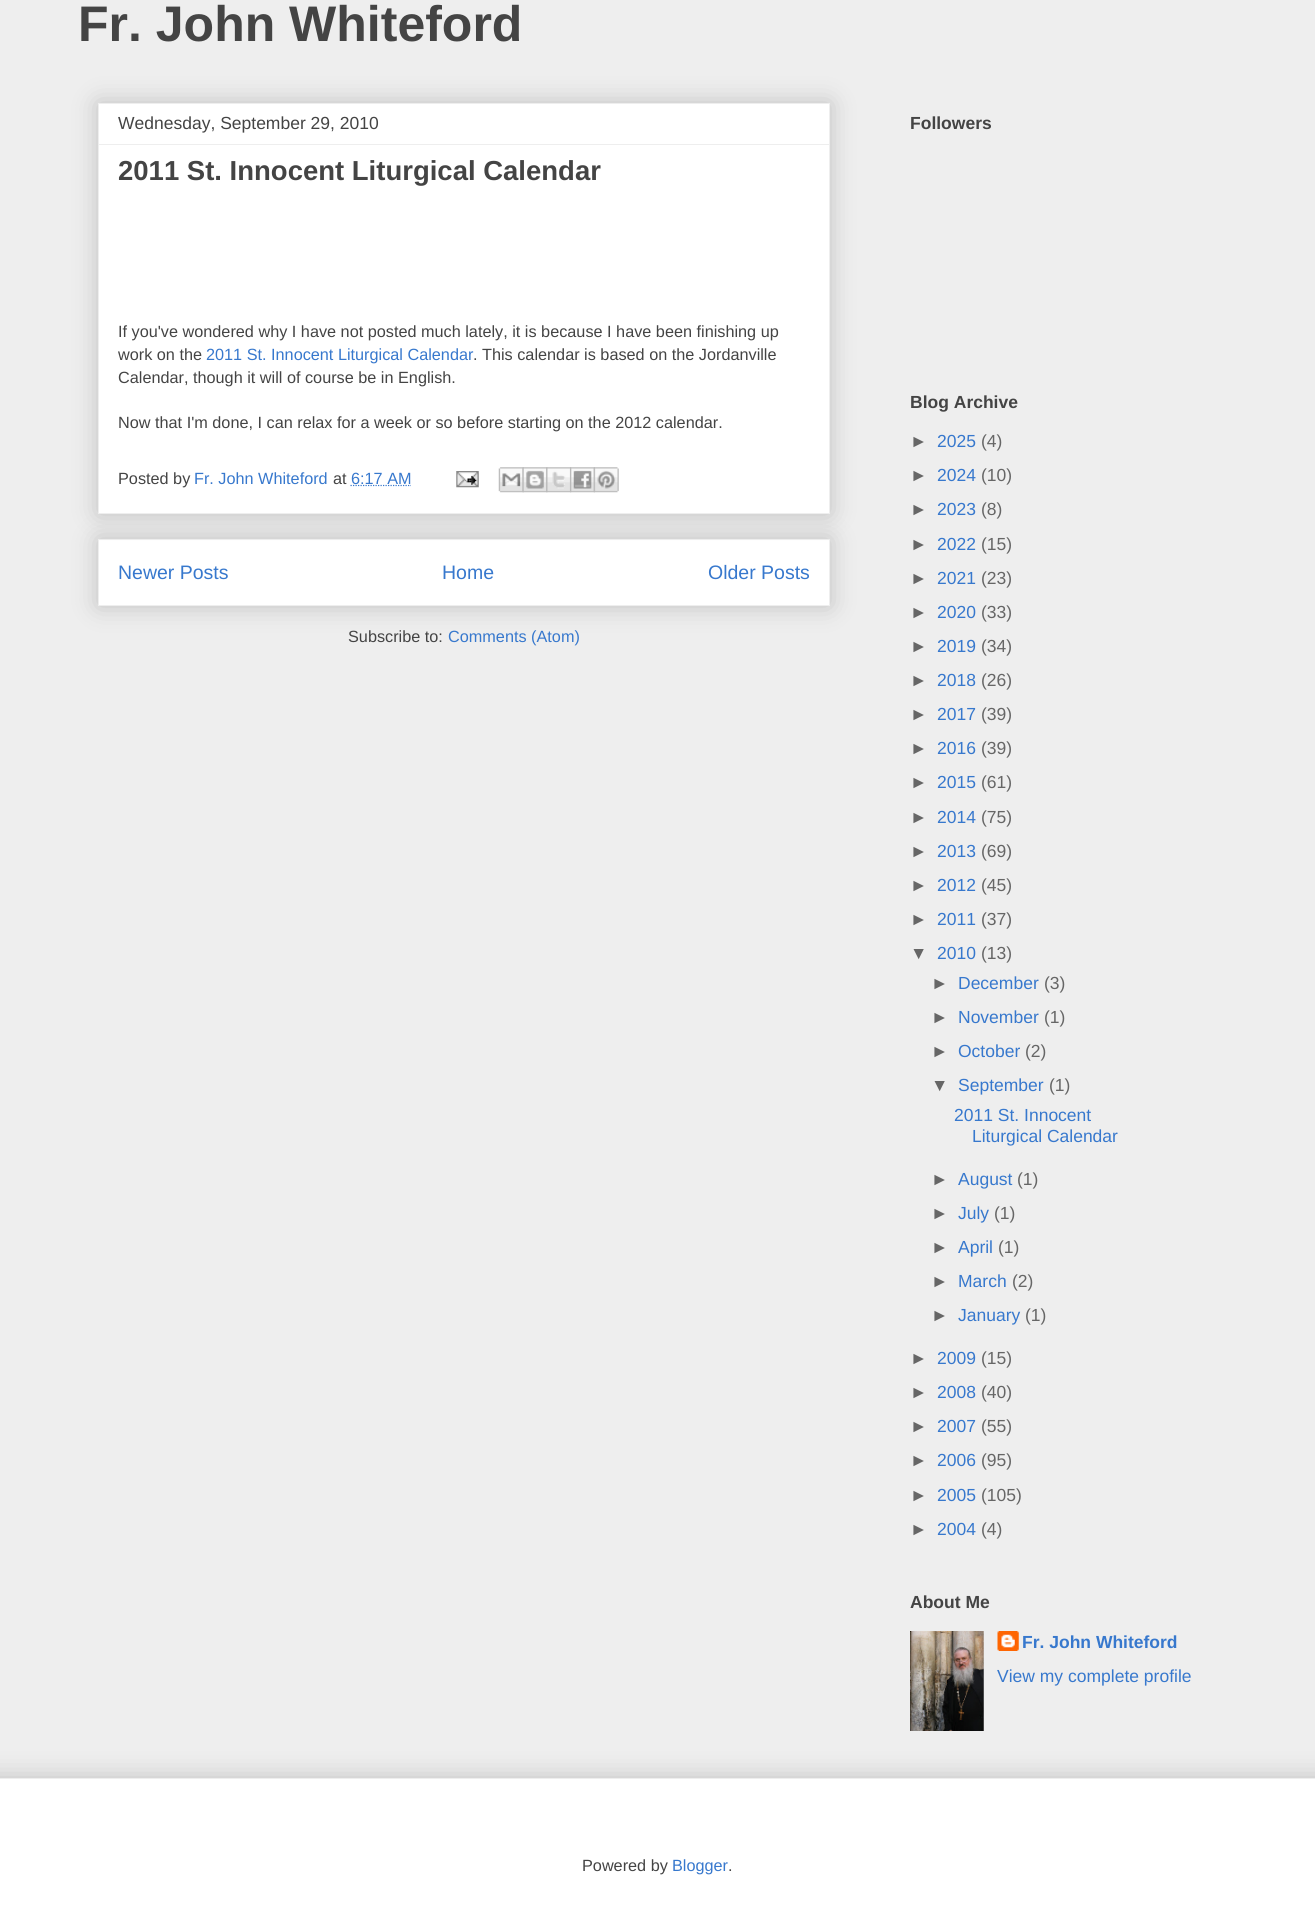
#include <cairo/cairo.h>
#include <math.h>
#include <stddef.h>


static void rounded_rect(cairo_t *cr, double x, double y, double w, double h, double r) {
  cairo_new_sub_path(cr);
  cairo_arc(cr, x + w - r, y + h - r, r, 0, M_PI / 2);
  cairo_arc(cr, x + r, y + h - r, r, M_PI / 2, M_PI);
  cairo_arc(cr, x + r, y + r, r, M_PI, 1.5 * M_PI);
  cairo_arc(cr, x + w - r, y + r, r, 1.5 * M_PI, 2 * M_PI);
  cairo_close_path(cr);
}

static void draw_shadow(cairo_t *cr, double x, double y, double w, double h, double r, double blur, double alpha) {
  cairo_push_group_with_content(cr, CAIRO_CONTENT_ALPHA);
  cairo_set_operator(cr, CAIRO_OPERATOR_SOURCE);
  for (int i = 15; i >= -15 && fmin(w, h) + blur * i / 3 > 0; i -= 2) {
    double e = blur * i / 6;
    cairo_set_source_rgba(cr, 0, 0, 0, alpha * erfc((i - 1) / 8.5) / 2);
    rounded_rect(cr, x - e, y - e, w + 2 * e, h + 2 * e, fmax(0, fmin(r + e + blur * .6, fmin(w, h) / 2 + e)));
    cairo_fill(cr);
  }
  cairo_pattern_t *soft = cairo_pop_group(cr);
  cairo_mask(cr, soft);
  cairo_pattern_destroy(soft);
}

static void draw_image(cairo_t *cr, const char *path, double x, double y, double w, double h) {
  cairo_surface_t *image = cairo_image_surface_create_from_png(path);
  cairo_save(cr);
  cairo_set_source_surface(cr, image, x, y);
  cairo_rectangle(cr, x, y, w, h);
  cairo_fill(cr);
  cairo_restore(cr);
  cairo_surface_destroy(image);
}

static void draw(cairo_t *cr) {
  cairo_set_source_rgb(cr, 238 / 255.0, 238 / 255.0, 238 / 255.0);
  cairo_paint(cr);
  cairo_set_source_rgb(cr, 0, 0, 0);
  draw_shadow(cr, 98, 539, 732, 67, 0, 12.5, 0.2);
  cairo_set_source_rgb(cr, 1, 1, 1);
  cairo_rectangle(cr, 98.5, 539.5, 731, 66);
  cairo_fill_preserve(cr);
  cairo_set_source_rgb(cr, 238 / 255.0, 238 / 255.0, 238 / 255.0);
  cairo_set_line_width(cr, 1);
  cairo_stroke(cr);
  cairo_set_source_rgb(cr, 0, 0, 0);
  draw_shadow(cr, 98, 103, 732, 411, 0, 12.5, 0.2);
  cairo_set_source_rgb(cr, 1, 1, 1);
  cairo_rectangle(cr, 98.5, 103.5, 731, 410);
  cairo_fill_preserve(cr);
  cairo_set_source_rgb(cr, 238 / 255.0, 238 / 255.0, 238 / 255.0);
  cairo_stroke(cr);
  cairo_rectangle(cr, 99, 144, 730, 1);
  cairo_fill(cr);
  cairo_new_path(cr);
  cairo_move_to(cr, 350.5, 485.5);
  cairo_line_to(cr, 411, 485.5);
  cairo_set_source_rgb(cr, 55 / 255.0, 120 / 255.0, 205 / 255.0);
  cairo_set_line_width(cr, 1.2);
  cairo_set_dash(cr, (double[]){1.25, 1.25}, 2, 0);
  cairo_stroke(cr);
  draw_image(cr, "images/1.png", 456, 471, 23, 17);
  draw_image(cr, "images/2.png", 498, 467, 26, 26);
  draw_image(cr, "images/3.png", 522, 467, 26, 26);
  draw_image(cr, "images/4.png", 546, 467, 26, 26);
  draw_image(cr, "images/5.png", 570, 467, 25, 26);
  draw_image(cr, "images/6.png", 593, 467, 26, 26);
  draw_image(cr, "images/7.png", 910, 1631, 74, 100);
  draw_image(cr, "images/8.png", 997, 1631, 22, 20);
  cairo_set_source_rgb(cr, 0, 0, 0);
  draw_shadow(cr, -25, 1778, 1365, 137, 0, 12.5, 0.2);
  cairo_set_source_rgb(cr, 1, 1, 1);
  cairo_rectangle(cr, 0, 1779, 1315, 136);
  cairo_fill(cr);
  cairo_set_source_rgb(cr, 238 / 255.0, 238 / 255.0, 238 / 255.0);
  cairo_rectangle(cr, 0, 1778, 1315, 1);
  cairo_fill(cr);
  cairo_select_font_face(cr, "Liberation Sans", CAIRO_FONT_SLANT_NORMAL, CAIRO_FONT_WEIGHT_BOLD);
  cairo_set_font_size(cr, 50);
  cairo_set_source_rgb(cr, 68 / 255.0, 68 / 255.0, 68 / 255.0);
  cairo_move_to(cr, 78, 41);
  cairo_show_text(cr, "Fr. John Whiteford");
  cairo_select_font_face(cr, "Liberation Sans", CAIRO_FONT_SLANT_NORMAL, CAIRO_FONT_WEIGHT_NORMAL);
  cairo_set_font_size(cr, 17.5);
  cairo_move_to(cr, 118, 129);
  cairo_show_text(cr, "Wednesday, September 29, 2010");
  cairo_select_font_face(cr, "Liberation Sans", CAIRO_FONT_SLANT_NORMAL, CAIRO_FONT_WEIGHT_BOLD);
  cairo_set_font_size(cr, 27.5);
  cairo_move_to(cr, 118, 180);
  cairo_show_text(cr, "2011 St. Innocent Liturgical Calendar");
  cairo_select_font_face(cr, "Liberation Sans", CAIRO_FONT_SLANT_NORMAL, CAIRO_FONT_WEIGHT_NORMAL);
  cairo_set_font_size(cr, 16.25);
  cairo_move_to(cr, 118, 337);
  cairo_show_text(cr, "If you've wondered why I have not posted much lately, it is because I have been finishing up");
  cairo_move_to(cr, 118, 360);
  cairo_show_text(cr, "work on the");
  cairo_set_source_rgb(cr, 55 / 255.0, 120 / 255.0, 205 / 255.0);
  cairo_move_to(cr, 206, 360);
  cairo_show_text(cr, "2011 St. Innocent Liturgical Calendar");
  cairo_set_source_rgb(cr, 68 / 255.0, 68 / 255.0, 68 / 255.0);
  cairo_move_to(cr, 473, 360);
  cairo_show_text(cr, ". This calendar is based on the Jordanville");
  cairo_move_to(cr, 118, 383);
  cairo_show_text(cr, "Calendar, though it will of course be in English.");
  cairo_move_to(cr, 118, 428);
  cairo_show_text(cr, "Now that I'm done, I can relax for a week or so before starting on the 2012 calendar.");
  cairo_move_to(cr, 118, 484);
  cairo_show_text(cr, "Posted by");
  cairo_set_source_rgb(cr, 55 / 255.0, 120 / 255.0, 205 / 255.0);
  cairo_move_to(cr, 194, 484);
  cairo_show_text(cr, "Fr. John Whiteford");
  cairo_set_source_rgb(cr, 68 / 255.0, 68 / 255.0, 68 / 255.0);
  cairo_move_to(cr, 333, 484);
  cairo_show_text(cr, "at");
  cairo_set_source_rgb(cr, 55 / 255.0, 120 / 255.0, 205 / 255.0);
  cairo_move_to(cr, 351, 484);
  cairo_show_text(cr, "6:17 AM");
  cairo_set_font_size(cr, 19.5);
  cairo_move_to(cr, 118, 579);
  cairo_show_text(cr, "Newer Posts");
  cairo_move_to(cr, 442, 579);
  cairo_show_text(cr, "Home");
  cairo_move_to(cr, 708, 579);
  cairo_show_text(cr, "Older Posts");
  cairo_set_font_size(cr, 16.25);
  cairo_set_source_rgb(cr, 68 / 255.0, 68 / 255.0, 68 / 255.0);
  cairo_move_to(cr, 348, 642);
  cairo_show_text(cr, "Subscribe to:");
  cairo_set_source_rgb(cr, 55 / 255.0, 120 / 255.0, 205 / 255.0);
  cairo_move_to(cr, 448, 642);
  cairo_show_text(cr, "Comments (Atom)");
  cairo_select_font_face(cr, "Liberation Sans", CAIRO_FONT_SLANT_NORMAL, CAIRO_FONT_WEIGHT_BOLD);
  cairo_set_font_size(cr, 17.5);
  cairo_set_source_rgb(cr, 68 / 255.0, 68 / 255.0, 68 / 255.0);
  cairo_move_to(cr, 910, 129);
  cairo_show_text(cr, "Followers");
  cairo_move_to(cr, 910, 408);
  cairo_show_text(cr, "Blog Archive");
  cairo_select_font_face(cr, "Liberation Sans", CAIRO_FONT_SLANT_NORMAL, CAIRO_FONT_WEIGHT_NORMAL);
  cairo_set_source_rgb(cr, 102 / 255.0, 102 / 255.0, 102 / 255.0);
  cairo_move_to(cr, 910, 447);
  cairo_show_text(cr, "►");
  cairo_set_source_rgb(cr, 55 / 255.0, 120 / 255.0, 205 / 255.0);
  cairo_move_to(cr, 937, 447);
  cairo_show_text(cr, "2025");
  cairo_set_source_rgb(cr, 102 / 255.0, 102 / 255.0, 102 / 255.0);
  cairo_move_to(cr, 981, 447);
  cairo_show_text(cr, "(4)");
  cairo_move_to(cr, 910, 481);
  cairo_show_text(cr, "►");
  cairo_set_source_rgb(cr, 55 / 255.0, 120 / 255.0, 205 / 255.0);
  cairo_move_to(cr, 937, 481);
  cairo_show_text(cr, "2024");
  cairo_set_source_rgb(cr, 102 / 255.0, 102 / 255.0, 102 / 255.0);
  cairo_move_to(cr, 981, 481);
  cairo_show_text(cr, "(10)");
  cairo_move_to(cr, 910, 515);
  cairo_show_text(cr, "►");
  cairo_set_source_rgb(cr, 55 / 255.0, 120 / 255.0, 205 / 255.0);
  cairo_move_to(cr, 937, 515);
  cairo_show_text(cr, "2023");
  cairo_set_source_rgb(cr, 102 / 255.0, 102 / 255.0, 102 / 255.0);
  cairo_move_to(cr, 981, 515);
  cairo_show_text(cr, "(8)");
  cairo_move_to(cr, 910, 550);
  cairo_show_text(cr, "►");
  cairo_set_source_rgb(cr, 55 / 255.0, 120 / 255.0, 205 / 255.0);
  cairo_move_to(cr, 937, 550);
  cairo_show_text(cr, "2022");
  cairo_set_source_rgb(cr, 102 / 255.0, 102 / 255.0, 102 / 255.0);
  cairo_move_to(cr, 981, 550);
  cairo_show_text(cr, "(15)");
  cairo_move_to(cr, 910, 584);
  cairo_show_text(cr, "►");
  cairo_set_source_rgb(cr, 55 / 255.0, 120 / 255.0, 205 / 255.0);
  cairo_move_to(cr, 937, 584);
  cairo_show_text(cr, "2021");
  cairo_set_source_rgb(cr, 102 / 255.0, 102 / 255.0, 102 / 255.0);
  cairo_move_to(cr, 981, 584);
  cairo_show_text(cr, "(23)");
  cairo_move_to(cr, 910, 618);
  cairo_show_text(cr, "►");
  cairo_set_source_rgb(cr, 55 / 255.0, 120 / 255.0, 205 / 255.0);
  cairo_move_to(cr, 937, 618);
  cairo_show_text(cr, "2020");
  cairo_set_source_rgb(cr, 102 / 255.0, 102 / 255.0, 102 / 255.0);
  cairo_move_to(cr, 981, 618);
  cairo_show_text(cr, "(33)");
  cairo_move_to(cr, 910, 652);
  cairo_show_text(cr, "►");
  cairo_set_source_rgb(cr, 55 / 255.0, 120 / 255.0, 205 / 255.0);
  cairo_move_to(cr, 937, 652);
  cairo_show_text(cr, "2019");
  cairo_set_source_rgb(cr, 102 / 255.0, 102 / 255.0, 102 / 255.0);
  cairo_move_to(cr, 981, 652);
  cairo_show_text(cr, "(34)");
  cairo_move_to(cr, 910, 686);
  cairo_show_text(cr, "►");
  cairo_set_source_rgb(cr, 55 / 255.0, 120 / 255.0, 205 / 255.0);
  cairo_move_to(cr, 937, 686);
  cairo_show_text(cr, "2018");
  cairo_set_source_rgb(cr, 102 / 255.0, 102 / 255.0, 102 / 255.0);
  cairo_move_to(cr, 981, 686);
  cairo_show_text(cr, "(26)");
  cairo_move_to(cr, 910, 720);
  cairo_show_text(cr, "►");
  cairo_set_source_rgb(cr, 55 / 255.0, 120 / 255.0, 205 / 255.0);
  cairo_move_to(cr, 937, 720);
  cairo_show_text(cr, "2017");
  cairo_set_source_rgb(cr, 102 / 255.0, 102 / 255.0, 102 / 255.0);
  cairo_move_to(cr, 981, 720);
  cairo_show_text(cr, "(39)");
  cairo_move_to(cr, 910, 754);
  cairo_show_text(cr, "►");
  cairo_set_source_rgb(cr, 55 / 255.0, 120 / 255.0, 205 / 255.0);
  cairo_move_to(cr, 937, 754);
  cairo_show_text(cr, "2016");
  cairo_set_source_rgb(cr, 102 / 255.0, 102 / 255.0, 102 / 255.0);
  cairo_move_to(cr, 981, 754);
  cairo_show_text(cr, "(39)");
  cairo_move_to(cr, 910, 788);
  cairo_show_text(cr, "►");
  cairo_set_source_rgb(cr, 55 / 255.0, 120 / 255.0, 205 / 255.0);
  cairo_move_to(cr, 937, 788);
  cairo_show_text(cr, "2015");
  cairo_set_source_rgb(cr, 102 / 255.0, 102 / 255.0, 102 / 255.0);
  cairo_move_to(cr, 981, 788);
  cairo_show_text(cr, "(61)");
  cairo_move_to(cr, 910, 823);
  cairo_show_text(cr, "►");
  cairo_set_source_rgb(cr, 55 / 255.0, 120 / 255.0, 205 / 255.0);
  cairo_move_to(cr, 937, 823);
  cairo_show_text(cr, "2014");
  cairo_set_source_rgb(cr, 102 / 255.0, 102 / 255.0, 102 / 255.0);
  cairo_move_to(cr, 981, 823);
  cairo_show_text(cr, "(75)");
  cairo_move_to(cr, 910, 857);
  cairo_show_text(cr, "►");
  cairo_set_source_rgb(cr, 55 / 255.0, 120 / 255.0, 205 / 255.0);
  cairo_move_to(cr, 937, 857);
  cairo_show_text(cr, "2013");
  cairo_set_source_rgb(cr, 102 / 255.0, 102 / 255.0, 102 / 255.0);
  cairo_move_to(cr, 981, 857);
  cairo_show_text(cr, "(69)");
  cairo_move_to(cr, 910, 891);
  cairo_show_text(cr, "►");
  cairo_set_source_rgb(cr, 55 / 255.0, 120 / 255.0, 205 / 255.0);
  cairo_move_to(cr, 937, 891);
  cairo_show_text(cr, "2012");
  cairo_set_source_rgb(cr, 102 / 255.0, 102 / 255.0, 102 / 255.0);
  cairo_move_to(cr, 981, 891);
  cairo_show_text(cr, "(45)");
  cairo_move_to(cr, 910, 925);
  cairo_show_text(cr, "►");
  cairo_set_source_rgb(cr, 55 / 255.0, 120 / 255.0, 205 / 255.0);
  cairo_move_to(cr, 937, 925);
  cairo_show_text(cr, "2011");
  cairo_set_source_rgb(cr, 102 / 255.0, 102 / 255.0, 102 / 255.0);
  cairo_move_to(cr, 981, 925);
  cairo_show_text(cr, "(37)");
  cairo_move_to(cr, 910, 959);
  cairo_show_text(cr, "▼");
  cairo_set_source_rgb(cr, 55 / 255.0, 120 / 255.0, 205 / 255.0);
  cairo_move_to(cr, 937, 959);
  cairo_show_text(cr, "2010");
  cairo_set_source_rgb(cr, 102 / 255.0, 102 / 255.0, 102 / 255.0);
  cairo_move_to(cr, 981, 959);
  cairo_show_text(cr, "(13)");
  cairo_move_to(cr, 931, 989);
  cairo_show_text(cr, "►");
  cairo_set_source_rgb(cr, 55 / 255.0, 120 / 255.0, 205 / 255.0);
  cairo_move_to(cr, 958, 989);
  cairo_show_text(cr, "December");
  cairo_set_source_rgb(cr, 102 / 255.0, 102 / 255.0, 102 / 255.0);
  cairo_move_to(cr, 1044, 989);
  cairo_show_text(cr, "(3)");
  cairo_move_to(cr, 931, 1023);
  cairo_show_text(cr, "►");
  cairo_set_source_rgb(cr, 55 / 255.0, 120 / 255.0, 205 / 255.0);
  cairo_move_to(cr, 958, 1023);
  cairo_show_text(cr, "November");
  cairo_set_source_rgb(cr, 102 / 255.0, 102 / 255.0, 102 / 255.0);
  cairo_move_to(cr, 1044, 1023);
  cairo_show_text(cr, "(1)");
  cairo_move_to(cr, 931, 1057);
  cairo_show_text(cr, "►");
  cairo_set_source_rgb(cr, 55 / 255.0, 120 / 255.0, 205 / 255.0);
  cairo_move_to(cr, 958, 1057);
  cairo_show_text(cr, "October");
  cairo_set_source_rgb(cr, 102 / 255.0, 102 / 255.0, 102 / 255.0);
  cairo_move_to(cr, 1025, 1057);
  cairo_show_text(cr, "(2)");
  cairo_move_to(cr, 931, 1091);
  cairo_show_text(cr, "▼");
  cairo_set_source_rgb(cr, 55 / 255.0, 120 / 255.0, 205 / 255.0);
  cairo_move_to(cr, 958, 1091);
  cairo_show_text(cr, "September");
  cairo_set_source_rgb(cr, 102 / 255.0, 102 / 255.0, 102 / 255.0);
  cairo_move_to(cr, 1049, 1091);
  cairo_show_text(cr, "(1)");
  cairo_set_source_rgb(cr, 55 / 255.0, 120 / 255.0, 205 / 255.0);
  cairo_move_to(cr, 954, 1121);
  cairo_show_text(cr, "2011 St. Innocent");
  cairo_move_to(cr, 972, 1142);
  cairo_show_text(cr, "Liturgical Calendar");
  cairo_set_source_rgb(cr, 102 / 255.0, 102 / 255.0, 102 / 255.0);
  cairo_move_to(cr, 931, 1185);
  cairo_show_text(cr, "►");
  cairo_set_source_rgb(cr, 55 / 255.0, 120 / 255.0, 205 / 255.0);
  cairo_move_to(cr, 958, 1185);
  cairo_show_text(cr, "August");
  cairo_set_source_rgb(cr, 102 / 255.0, 102 / 255.0, 102 / 255.0);
  cairo_move_to(cr, 1017, 1185);
  cairo_show_text(cr, "(1)");
  cairo_move_to(cr, 931, 1219);
  cairo_show_text(cr, "►");
  cairo_set_source_rgb(cr, 55 / 255.0, 120 / 255.0, 205 / 255.0);
  cairo_move_to(cr, 958, 1219);
  cairo_show_text(cr, "July");
  cairo_set_source_rgb(cr, 102 / 255.0, 102 / 255.0, 102 / 255.0);
  cairo_move_to(cr, 994, 1219);
  cairo_show_text(cr, "(1)");
  cairo_move_to(cr, 931, 1253);
  cairo_show_text(cr, "►");
  cairo_set_source_rgb(cr, 55 / 255.0, 120 / 255.0, 205 / 255.0);
  cairo_move_to(cr, 958, 1253);
  cairo_show_text(cr, "April");
  cairo_set_source_rgb(cr, 102 / 255.0, 102 / 255.0, 102 / 255.0);
  cairo_move_to(cr, 998, 1253);
  cairo_show_text(cr, "(1)");
  cairo_move_to(cr, 931, 1287);
  cairo_show_text(cr, "►");
  cairo_set_source_rgb(cr, 55 / 255.0, 120 / 255.0, 205 / 255.0);
  cairo_move_to(cr, 958, 1287);
  cairo_show_text(cr, "March");
  cairo_set_source_rgb(cr, 102 / 255.0, 102 / 255.0, 102 / 255.0);
  cairo_move_to(cr, 1012, 1287);
  cairo_show_text(cr, "(2)");
  cairo_move_to(cr, 931, 1321);
  cairo_show_text(cr, "►");
  cairo_set_source_rgb(cr, 55 / 255.0, 120 / 255.0, 205 / 255.0);
  cairo_move_to(cr, 958, 1321);
  cairo_show_text(cr, "January");
  cairo_set_source_rgb(cr, 102 / 255.0, 102 / 255.0, 102 / 255.0);
  cairo_move_to(cr, 1025, 1321);
  cairo_show_text(cr, "(1)");
  cairo_move_to(cr, 910, 1364);
  cairo_show_text(cr, "►");
  cairo_set_source_rgb(cr, 55 / 255.0, 120 / 255.0, 205 / 255.0);
  cairo_move_to(cr, 937, 1364);
  cairo_show_text(cr, "2009");
  cairo_set_source_rgb(cr, 102 / 255.0, 102 / 255.0, 102 / 255.0);
  cairo_move_to(cr, 981, 1364);
  cairo_show_text(cr, "(15)");
  cairo_move_to(cr, 910, 1398);
  cairo_show_text(cr, "►");
  cairo_set_source_rgb(cr, 55 / 255.0, 120 / 255.0, 205 / 255.0);
  cairo_move_to(cr, 937, 1398);
  cairo_show_text(cr, "2008");
  cairo_set_source_rgb(cr, 102 / 255.0, 102 / 255.0, 102 / 255.0);
  cairo_move_to(cr, 981, 1398);
  cairo_show_text(cr, "(40)");
  cairo_move_to(cr, 910, 1432);
  cairo_show_text(cr, "►");
  cairo_set_source_rgb(cr, 55 / 255.0, 120 / 255.0, 205 / 255.0);
  cairo_move_to(cr, 937, 1432);
  cairo_show_text(cr, "2007");
  cairo_set_source_rgb(cr, 102 / 255.0, 102 / 255.0, 102 / 255.0);
  cairo_move_to(cr, 981, 1432);
  cairo_show_text(cr, "(55)");
  cairo_move_to(cr, 910, 1466);
  cairo_show_text(cr, "►");
  cairo_set_source_rgb(cr, 55 / 255.0, 120 / 255.0, 205 / 255.0);
  cairo_move_to(cr, 937, 1466);
  cairo_show_text(cr, "2006");
  cairo_set_source_rgb(cr, 102 / 255.0, 102 / 255.0, 102 / 255.0);
  cairo_move_to(cr, 981, 1466);
  cairo_show_text(cr, "(95)");
  cairo_move_to(cr, 910, 1501);
  cairo_show_text(cr, "►");
  cairo_set_source_rgb(cr, 55 / 255.0, 120 / 255.0, 205 / 255.0);
  cairo_move_to(cr, 937, 1501);
  cairo_show_text(cr, "2005");
  cairo_set_source_rgb(cr, 102 / 255.0, 102 / 255.0, 102 / 255.0);
  cairo_move_to(cr, 981, 1501);
  cairo_show_text(cr, "(105)");
  cairo_move_to(cr, 910, 1535);
  cairo_show_text(cr, "►");
  cairo_set_source_rgb(cr, 55 / 255.0, 120 / 255.0, 205 / 255.0);
  cairo_move_to(cr, 937, 1535);
  cairo_show_text(cr, "2004");
  cairo_set_source_rgb(cr, 102 / 255.0, 102 / 255.0, 102 / 255.0);
  cairo_move_to(cr, 981, 1535);
  cairo_show_text(cr, "(4)");
  cairo_select_font_face(cr, "Liberation Sans", CAIRO_FONT_SLANT_NORMAL, CAIRO_FONT_WEIGHT_BOLD);
  cairo_set_source_rgb(cr, 68 / 255.0, 68 / 255.0, 68 / 255.0);
  cairo_move_to(cr, 910, 1608);
  cairo_show_text(cr, "About Me");
  cairo_set_source_rgb(cr, 55 / 255.0, 120 / 255.0, 205 / 255.0);
  cairo_move_to(cr, 1022, 1648);
  cairo_show_text(cr, "Fr. John Whiteford");
  cairo_select_font_face(cr, "Liberation Sans", CAIRO_FONT_SLANT_NORMAL, CAIRO_FONT_WEIGHT_NORMAL);
  cairo_move_to(cr, 997, 1682);
  cairo_show_text(cr, "View my complete profile");
  cairo_set_font_size(cr, 16.25);
  cairo_set_source_rgb(cr, 68 / 255.0, 68 / 255.0, 68 / 255.0);
  cairo_move_to(cr, 582, 1871);
  cairo_show_text(cr, "Powered by");
  cairo_set_source_rgb(cr, 55 / 255.0, 120 / 255.0, 205 / 255.0);
  cairo_move_to(cr, 672, 1871);
  cairo_show_text(cr, "Blogger");
  cairo_set_source_rgb(cr, 68 / 255.0, 68 / 255.0, 68 / 255.0);
  cairo_move_to(cr, 728, 1871);
  cairo_show_text(cr, ".");
}

int main(void) {
  cairo_surface_t *surface = cairo_image_surface_create(CAIRO_FORMAT_RGB24, 1315, 1915);
  cairo_t *cr = cairo_create(surface);
  cairo_font_options_t *options = cairo_font_options_create();
  cairo_font_options_set_hint_metrics(options, CAIRO_HINT_METRICS_OFF);
  cairo_font_options_set_hint_style(options, CAIRO_HINT_STYLE_NONE);
  cairo_set_font_options(cr, options);
  cairo_set_miter_limit(cr, 4);
  draw(cr);
  cairo_surface_write_to_png(surface, "out.png");
  cairo_font_options_destroy(options);
  cairo_destroy(cr);
  cairo_surface_destroy(surface);
  return 0;
}
